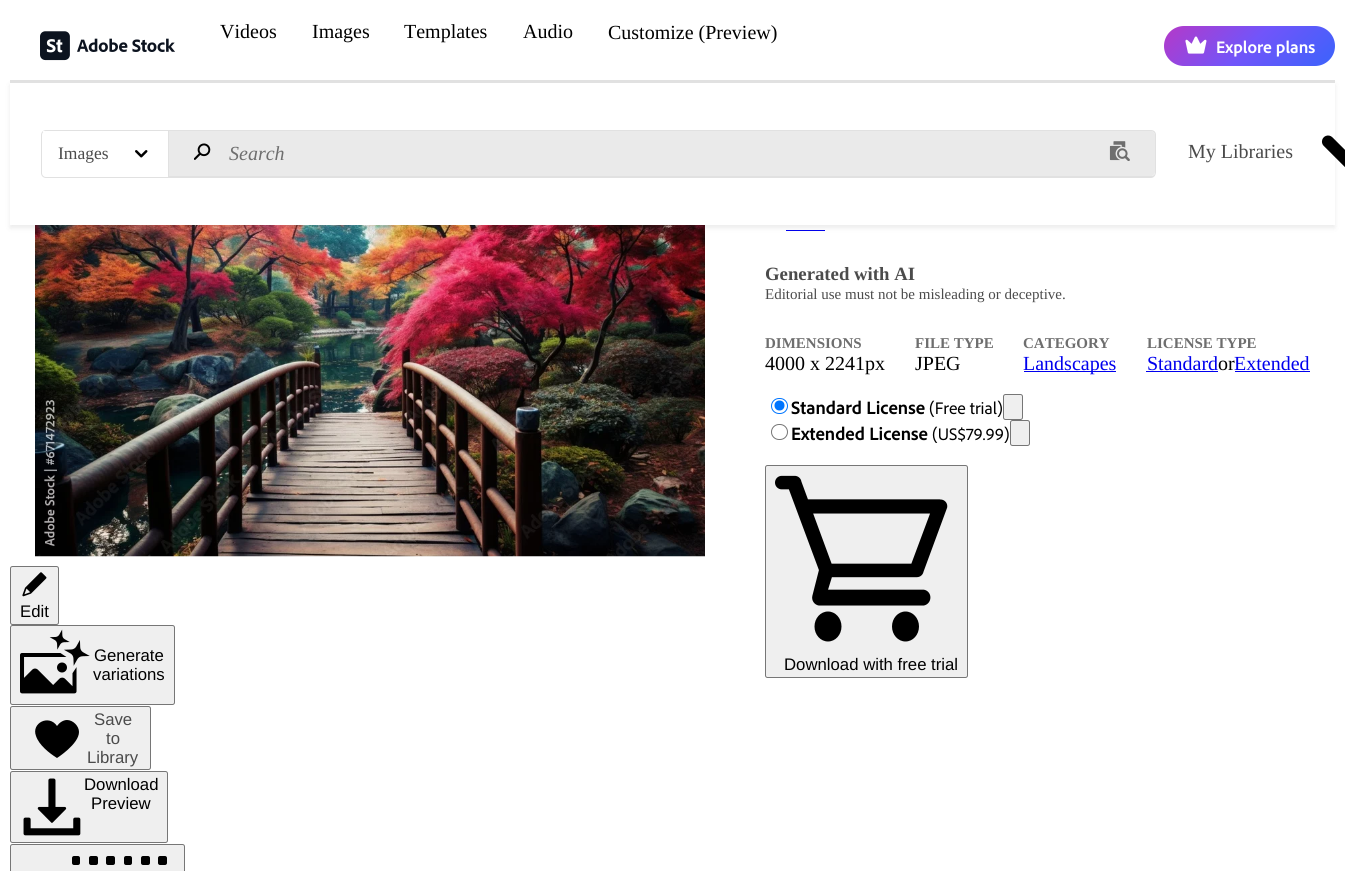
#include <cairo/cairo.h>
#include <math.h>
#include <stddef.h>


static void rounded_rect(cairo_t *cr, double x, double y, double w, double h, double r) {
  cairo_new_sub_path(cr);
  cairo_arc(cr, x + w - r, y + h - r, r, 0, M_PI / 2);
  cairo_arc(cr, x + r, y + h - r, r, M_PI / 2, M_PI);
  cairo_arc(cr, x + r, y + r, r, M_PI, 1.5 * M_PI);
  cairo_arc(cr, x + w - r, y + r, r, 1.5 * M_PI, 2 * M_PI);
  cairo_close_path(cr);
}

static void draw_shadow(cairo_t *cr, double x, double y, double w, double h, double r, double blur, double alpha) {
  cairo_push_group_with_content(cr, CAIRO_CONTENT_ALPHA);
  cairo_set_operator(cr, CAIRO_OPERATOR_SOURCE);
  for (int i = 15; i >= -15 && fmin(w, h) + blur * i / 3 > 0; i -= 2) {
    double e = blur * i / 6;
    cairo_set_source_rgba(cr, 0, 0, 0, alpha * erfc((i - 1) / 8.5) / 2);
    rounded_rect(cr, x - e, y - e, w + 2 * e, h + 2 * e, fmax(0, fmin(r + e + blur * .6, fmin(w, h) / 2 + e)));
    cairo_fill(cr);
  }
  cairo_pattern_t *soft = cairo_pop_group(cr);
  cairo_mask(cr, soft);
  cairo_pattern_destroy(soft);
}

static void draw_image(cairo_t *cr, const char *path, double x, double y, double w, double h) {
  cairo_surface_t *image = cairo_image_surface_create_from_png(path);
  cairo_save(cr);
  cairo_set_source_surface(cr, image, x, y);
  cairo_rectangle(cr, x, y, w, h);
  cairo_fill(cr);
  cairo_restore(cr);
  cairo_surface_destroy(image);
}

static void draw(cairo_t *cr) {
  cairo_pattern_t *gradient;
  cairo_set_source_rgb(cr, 1, 1, 1);
  cairo_paint(cr);
  cairo_set_source_rgb(cr, 0, 0, 238 / 255.0);
  cairo_rectangle(cr, 786, 230, 39, 1);
  cairo_fill(cr);
  draw_image(cr, "images/8.png", 35, 225, 670, 332);
  cairo_set_source_rgb(cr, 52 / 255.0, 52 / 255.0, 52 / 255.0);
  draw_shadow(cr, 10, 85, 1325, 143, 0, 2.5, 0.1);
  cairo_set_source_rgb(cr, 225 / 255.0, 225 / 255.0, 225 / 255.0);
  cairo_rectangle(cr, 10, 80, 1325, 3);
  cairo_fill(cr);
  draw_image(cr, "images/1.png", 40, 31, 135, 30);
  gradient = cairo_pattern_create_linear(1197, -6.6, 1302, 99);
  cairo_pattern_add_color_stop_rgba(gradient, 0, 181 / 255.0, 57 / 255.0, 200 / 255.0, 1);
  cairo_pattern_add_color_stop_rgba(gradient, 0.5, 113 / 255.0, 85 / 255.0, 250 / 255.0, 1);
  cairo_pattern_add_color_stop_rgba(gradient, 1, 59 / 255.0, 99 / 255.0, 251 / 255.0, 1);
  cairo_set_source(cr, gradient);
  cairo_pattern_destroy(gradient);
  rounded_rect(cr, 1164, 26, 171, 40, 20);
  cairo_fill(cr);
  draw_image(cr, "images/2.png", 1185, 36, 22, 18);
  cairo_set_source_rgb(cr, 1, 1, 1);
  cairo_rectangle(cr, 10, 83, 1325, 142);
  cairo_fill(cr);
  cairo_new_path(cr);
  cairo_move_to(cr, 46, 130.5);
  cairo_line_to(cr, 168.5, 130.5);
  cairo_line_to(cr, 168.5, 177.5);
  cairo_line_to(cr, 46, 177.5);
  cairo_curve_to(cr, 43.5, 177.5, 41.5, 175.5, 41.5, 173);
  cairo_line_to(cr, 41.5, 135);
  cairo_curve_to(cr, 41.5, 132.5, 43.5, 130.5, 46, 130.5);
  cairo_close_path(cr);
  cairo_set_source_rgb(cr, 225 / 255.0, 225 / 255.0, 225 / 255.0);
  cairo_set_line_width(cr, 1);
  cairo_stroke(cr);
  cairo_set_source_rgb(cr, 1, 1, 1);
  cairo_rectangle(cr, 43, 131, 2, 1);
  cairo_fill(cr);
  draw_image(cr, "images/3.png", 135, 150, 13, 8);
  cairo_set_source_rgb(cr, 234 / 255.0, 234 / 255.0, 234 / 255.0);
  cairo_new_path(cr);
  cairo_move_to(cr, 169, 131);
  cairo_line_to(cr, 1151, 131);
  cairo_curve_to(cr, 1153, 131, 1155, 133, 1155, 135);
  cairo_line_to(cr, 1155, 172);
  cairo_curve_to(cr, 1155, 174, 1153, 176, 1151, 176);
  cairo_line_to(cr, 169, 176);
  cairo_close_path(cr);
  cairo_fill(cr);
  cairo_set_source_rgb(cr, 225 / 255.0, 225 / 255.0, 225 / 255.0);
  cairo_set_fill_rule(cr, CAIRO_FILL_RULE_EVEN_ODD);
  cairo_new_path(cr);
  cairo_move_to(cr, 169, 130);
  cairo_line_to(cr, 1151, 130);
  cairo_curve_to(cr, 1154, 130, 1156, 132, 1156, 135);
  cairo_line_to(cr, 1156, 172);
  cairo_curve_to(cr, 1156, 175, 1154, 178, 1151, 178);
  cairo_line_to(cr, 169, 178);
  cairo_close_path(cr);
  cairo_move_to(cr, 169, 131);
  cairo_line_to(cr, 1151, 131);
  cairo_curve_to(cr, 1153, 131, 1155, 133, 1155, 135);
  cairo_line_to(cr, 1155, 172);
  cairo_curve_to(cr, 1155, 175, 1153, 176, 1151, 176);
  cairo_line_to(cr, 169, 176);
  cairo_close_path(cr);
  cairo_fill(cr);
  draw_image(cr, "images/4.png", 194, 143, 17, 17);
  draw_image(cr, "images/5.png", 1109, 141, 21, 20);
  draw_image(cr, "images/6.png", 1321, 135, 24, 32);
  cairo_set_source_rgb(cr, 0, 0, 238 / 255.0);
  cairo_rectangle(cr, 1024, 371, 92, 1);
  cairo_fill(cr);
  cairo_rectangle(cr, 1146, 371, 72, 1);
  cairo_fill(cr);
  cairo_rectangle(cr, 1235, 371, 75, 1);
  cairo_fill(cr);
  rounded_rect(cr, 771.5, 398.5, 16, 15, 7.5);
  cairo_set_source_rgb(cr, 0, 117 / 255.0, 1);
  cairo_stroke(cr);
  cairo_arc(cr, 779.5, 405.5, 5, 0, 2 * M_PI);
  cairo_fill(cr);
  cairo_set_source_rgb(cr, 239 / 255.0, 239 / 255.0, 239 / 255.0);
  rounded_rect(cr, 1003.5, 394.5, 19, 25, 2);
  cairo_fill_preserve(cr);
  cairo_set_source_rgb(cr, 118 / 255.0, 118 / 255.0, 118 / 255.0);
  cairo_stroke(cr);
  rounded_rect(cr, 771.5, 424.5, 16, 15, 7.5);
  cairo_stroke(cr);
  cairo_set_source_rgb(cr, 239 / 255.0, 239 / 255.0, 239 / 255.0);
  rounded_rect(cr, 1010.5, 420.5, 19, 25, 2);
  cairo_fill_preserve(cr);
  cairo_set_source_rgb(cr, 118 / 255.0, 118 / 255.0, 118 / 255.0);
  cairo_stroke(cr);
  cairo_set_source_rgb(cr, 239 / 255.0, 239 / 255.0, 239 / 255.0);
  rounded_rect(cr, 765.5, 465.5, 202, 212, 2);
  cairo_fill_preserve(cr);
  cairo_set_source_rgb(cr, 118 / 255.0, 118 / 255.0, 118 / 255.0);
  cairo_stroke(cr);
  draw_image(cr, "images/7.png", 775, 475, 173, 167);
  cairo_set_source_rgb(cr, 239 / 255.0, 239 / 255.0, 239 / 255.0);
  rounded_rect(cr, 10.5, 566.5, 48, 58, 2);
  cairo_fill_preserve(cr);
  cairo_set_source_rgb(cr, 118 / 255.0, 118 / 255.0, 118 / 255.0);
  cairo_stroke(cr);
  draw_image(cr, "images/9.png", 22, 572, 25, 25);
  cairo_set_source_rgb(cr, 239 / 255.0, 239 / 255.0, 239 / 255.0);
  rounded_rect(cr, 10.5, 625.5, 164, 79, 2);
  cairo_fill_preserve(cr);
  cairo_set_source_rgb(cr, 118 / 255.0, 118 / 255.0, 118 / 255.0);
  cairo_stroke(cr);
  draw_image(cr, "images/10.png", 20, 629, 70, 65);
  cairo_set_source_rgb(cr, 239 / 255.0, 239 / 255.0, 239 / 255.0);
  rounded_rect(cr, 10.5, 706.5, 140, 63, 2);
  cairo_fill_preserve(cr);
  cairo_set_source_rgb(cr, 118 / 255.0, 118 / 255.0, 118 / 255.0);
  cairo_stroke(cr);
  cairo_set_source_rgb(cr, 0, 0, 0);
  cairo_new_path(cr);
  cairo_move_to(cr, 67, 720);
  cairo_curve_to(cr, 63, 720, 59, 723, 57, 726);
  cairo_curve_to(cr, 49, 714, 31, 723, 36, 736);
  cairo_curve_to(cr, 39, 745, 49, 753, 57, 758);
  cairo_curve_to(cr, 57, 758, 79, 744, 79, 732);
  cairo_curve_to(cr, 79, 726, 73, 720, 67, 720);
  cairo_close_path(cr);
  cairo_fill(cr);
  cairo_set_source_rgb(cr, 239 / 255.0, 239 / 255.0, 239 / 255.0);
  rounded_rect(cr, 10.5, 771.5, 157, 71, 2);
  cairo_fill_preserve(cr);
  cairo_set_source_rgb(cr, 118 / 255.0, 118 / 255.0, 118 / 255.0);
  cairo_stroke(cr);
  draw_image(cr, "images/11.png", 23, 778, 58, 58);
  cairo_set_source_rgb(cr, 239 / 255.0, 239 / 255.0, 239 / 255.0);
  rounded_rect(cr, 10.5, 844.5, 174, 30, 2);
  cairo_fill_preserve(cr);
  cairo_set_source_rgb(cr, 118 / 255.0, 118 / 255.0, 118 / 255.0);
  cairo_stroke(cr);
  draw_image(cr, "images/12.png", 72, 856, 95, 9);
  cairo_select_font_face(cr, "Liberation Serif", CAIRO_FONT_SLANT_NORMAL, CAIRO_FONT_WEIGHT_NORMAL);
  cairo_set_font_size(cr, 20);
  cairo_set_source_rgb(cr, 0, 0, 0);
  cairo_move_to(cr, 220, 38);
  cairo_show_text(cr, "Videos");
  cairo_move_to(cr, 312, 38);
  cairo_show_text(cr, "Images");
  cairo_move_to(cr, 404, 38);
  cairo_show_text(cr, "Templates");
  cairo_move_to(cr, 523, 38);
  cairo_show_text(cr, "Audio");
  cairo_move_to(cr, 608, 39);
  cairo_show_text(cr, "Customize (Preview)");
  cairo_select_font_face(cr, "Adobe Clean", CAIRO_FONT_SLANT_NORMAL, CAIRO_FONT_WEIGHT_BOLD);
  cairo_set_font_size(cr, 17.5);
  cairo_set_source_rgb(cr, 1, 1, 1);
  cairo_move_to(cr, 1216, 53);
  cairo_show_text(cr, "Explore plans");
  cairo_select_font_face(cr, "Liberation Serif", CAIRO_FONT_SLANT_NORMAL, CAIRO_FONT_WEIGHT_NORMAL);
  cairo_set_source_rgb(cr, 75 / 255.0, 75 / 255.0, 75 / 255.0);
  cairo_move_to(cr, 58, 159);
  cairo_show_text(cr, "Images");
  cairo_select_font_face(cr, "Liberation Serif", CAIRO_FONT_SLANT_ITALIC, CAIRO_FONT_WEIGHT_NORMAL);
  cairo_set_font_size(cr, 20);
  cairo_set_source_rgb(cr, 110 / 255.0, 110 / 255.0, 110 / 255.0);
  cairo_move_to(cr, 229, 160);
  cairo_show_text(cr, "Search");
  cairo_select_font_face(cr, "Liberation Serif", CAIRO_FONT_SLANT_NORMAL, CAIRO_FONT_WEIGHT_NORMAL);
  cairo_set_source_rgb(cr, 75 / 255.0, 75 / 255.0, 75 / 255.0);
  cairo_move_to(cr, 1188, 158);
  cairo_show_text(cr, "My Libraries");
  cairo_select_font_face(cr, "Liberation Serif", CAIRO_FONT_SLANT_NORMAL, CAIRO_FONT_WEIGHT_BOLD);
  cairo_set_font_size(cr, 18.75);
  cairo_move_to(cr, 765, 280);
  cairo_show_text(cr, "Generated with AI");
  cairo_select_font_face(cr, "Liberation Serif", CAIRO_FONT_SLANT_NORMAL, CAIRO_FONT_WEIGHT_NORMAL);
  cairo_set_font_size(cr, 15);
  cairo_move_to(cr, 765, 299);
  cairo_show_text(cr, "Editorial use must not be misleading or deceptive.");
  cairo_select_font_face(cr, "Liberation Serif", CAIRO_FONT_SLANT_NORMAL, CAIRO_FONT_WEIGHT_BOLD);
  cairo_set_source_rgb(cr, 110 / 255.0, 110 / 255.0, 110 / 255.0);
  cairo_move_to(cr, 765, 348);
  cairo_show_text(cr, "DIMENSIONS");
  cairo_select_font_face(cr, "Liberation Serif", CAIRO_FONT_SLANT_NORMAL, CAIRO_FONT_WEIGHT_NORMAL);
  cairo_set_font_size(cr, 20);
  cairo_set_source_rgb(cr, 0, 0, 0);
  cairo_move_to(cr, 765, 370);
  cairo_show_text(cr, "4000 x 2241px");
  cairo_select_font_face(cr, "Liberation Serif", CAIRO_FONT_SLANT_NORMAL, CAIRO_FONT_WEIGHT_BOLD);
  cairo_set_font_size(cr, 15);
  cairo_set_source_rgb(cr, 110 / 255.0, 110 / 255.0, 110 / 255.0);
  cairo_move_to(cr, 915, 348);
  cairo_show_text(cr, "FILE TYPE");
  cairo_select_font_face(cr, "Liberation Serif", CAIRO_FONT_SLANT_NORMAL, CAIRO_FONT_WEIGHT_NORMAL);
  cairo_set_font_size(cr, 20);
  cairo_set_source_rgb(cr, 0, 0, 0);
  cairo_move_to(cr, 915, 370);
  cairo_show_text(cr, "JPEG");
  cairo_select_font_face(cr, "Liberation Serif", CAIRO_FONT_SLANT_NORMAL, CAIRO_FONT_WEIGHT_BOLD);
  cairo_set_font_size(cr, 15);
  cairo_set_source_rgb(cr, 110 / 255.0, 110 / 255.0, 110 / 255.0);
  cairo_move_to(cr, 1023, 348);
  cairo_show_text(cr, "CATEGORY");
  cairo_select_font_face(cr, "Liberation Serif", CAIRO_FONT_SLANT_NORMAL, CAIRO_FONT_WEIGHT_NORMAL);
  cairo_set_font_size(cr, 20);
  cairo_set_source_rgb(cr, 0, 0, 238 / 255.0);
  cairo_move_to(cr, 1023, 370);
  cairo_show_text(cr, "Landscapes");
  cairo_select_font_face(cr, "Liberation Serif", CAIRO_FONT_SLANT_NORMAL, CAIRO_FONT_WEIGHT_BOLD);
  cairo_set_font_size(cr, 15);
  cairo_set_source_rgb(cr, 110 / 255.0, 110 / 255.0, 110 / 255.0);
  cairo_move_to(cr, 1147, 348);
  cairo_show_text(cr, "LICENSE TYPE");
  cairo_select_font_face(cr, "Liberation Serif", CAIRO_FONT_SLANT_NORMAL, CAIRO_FONT_WEIGHT_NORMAL);
  cairo_set_font_size(cr, 20);
  cairo_set_source_rgb(cr, 0, 0, 238 / 255.0);
  cairo_move_to(cr, 1147, 370);
  cairo_show_text(cr, "Standard");
  cairo_set_source_rgb(cr, 0, 0, 0);
  cairo_move_to(cr, 1218, 370);
  cairo_show_text(cr, "or");
  cairo_set_source_rgb(cr, 0, 0, 238 / 255.0);
  cairo_move_to(cr, 1234, 370);
  cairo_show_text(cr, "Extended");
  cairo_select_font_face(cr, "Adobe Clean", CAIRO_FONT_SLANT_NORMAL, CAIRO_FONT_WEIGHT_BOLD);
  cairo_set_font_size(cr, 18.75);
  cairo_set_source_rgb(cr, 0, 0, 0);
  cairo_move_to(cr, 791, 414);
  cairo_show_text(cr, "Standard License");
  cairo_select_font_face(cr, "Adobe Clean", CAIRO_FONT_SLANT_NORMAL, CAIRO_FONT_WEIGHT_NORMAL);
  cairo_set_font_size(cr, 17.5);
  cairo_move_to(cr, 929, 414);
  cairo_show_text(cr, "(Free trial)");
  cairo_select_font_face(cr, "Adobe Clean", CAIRO_FONT_SLANT_NORMAL, CAIRO_FONT_WEIGHT_BOLD);
  cairo_set_font_size(cr, 18.75);
  cairo_move_to(cr, 791, 440);
  cairo_show_text(cr, "Extended License");
  cairo_select_font_face(cr, "Adobe Clean", CAIRO_FONT_SLANT_NORMAL, CAIRO_FONT_WEIGHT_NORMAL);
  cairo_set_font_size(cr, 17.5);
  cairo_move_to(cr, 932, 440);
  cairo_show_text(cr, "(US$79.99)");
  cairo_select_font_face(cr, "Liberation Sans", CAIRO_FONT_SLANT_NORMAL, CAIRO_FONT_WEIGHT_NORMAL);
  cairo_set_font_size(cr, 16.75);
  cairo_move_to(cr, 784, 670);
  cairo_show_text(cr, "Download with free trial");
  cairo_move_to(cr, 20, 617);
  cairo_show_text(cr, "Edit");
  cairo_move_to(cr, 94, 661);
  cairo_show_text(cr, "Generate");
  cairo_move_to(cr, 93, 680);
  cairo_show_text(cr, "variations");
  cairo_set_source_rgb(cr, 75 / 255.0, 75 / 255.0, 75 / 255.0);
  cairo_move_to(cr, 94, 725);
  cairo_show_text(cr, "Save");
  cairo_move_to(cr, 106, 744);
  cairo_show_text(cr, "to");
  cairo_move_to(cr, 87, 763);
  cairo_show_text(cr, "Library");
  cairo_set_source_rgb(cr, 0, 0, 0);
  cairo_move_to(cr, 84, 790);
  cairo_show_text(cr, "Download");
  cairo_move_to(cr, 91, 809);
  cairo_show_text(cr, "Preview");
}

int main(void) {
  cairo_surface_t *surface = cairo_image_surface_create(CAIRO_FORMAT_RGB24, 1345, 871);
  cairo_t *cr = cairo_create(surface);
  cairo_font_options_t *options = cairo_font_options_create();
  cairo_font_options_set_hint_metrics(options, CAIRO_HINT_METRICS_OFF);
  cairo_font_options_set_hint_style(options, CAIRO_HINT_STYLE_NONE);
  cairo_set_font_options(cr, options);
  cairo_set_miter_limit(cr, 4);
  draw(cr);
  cairo_surface_write_to_png(surface, "out.png");
  cairo_font_options_destroy(options);
  cairo_destroy(cr);
  cairo_surface_destroy(surface);
  return 0;
}
